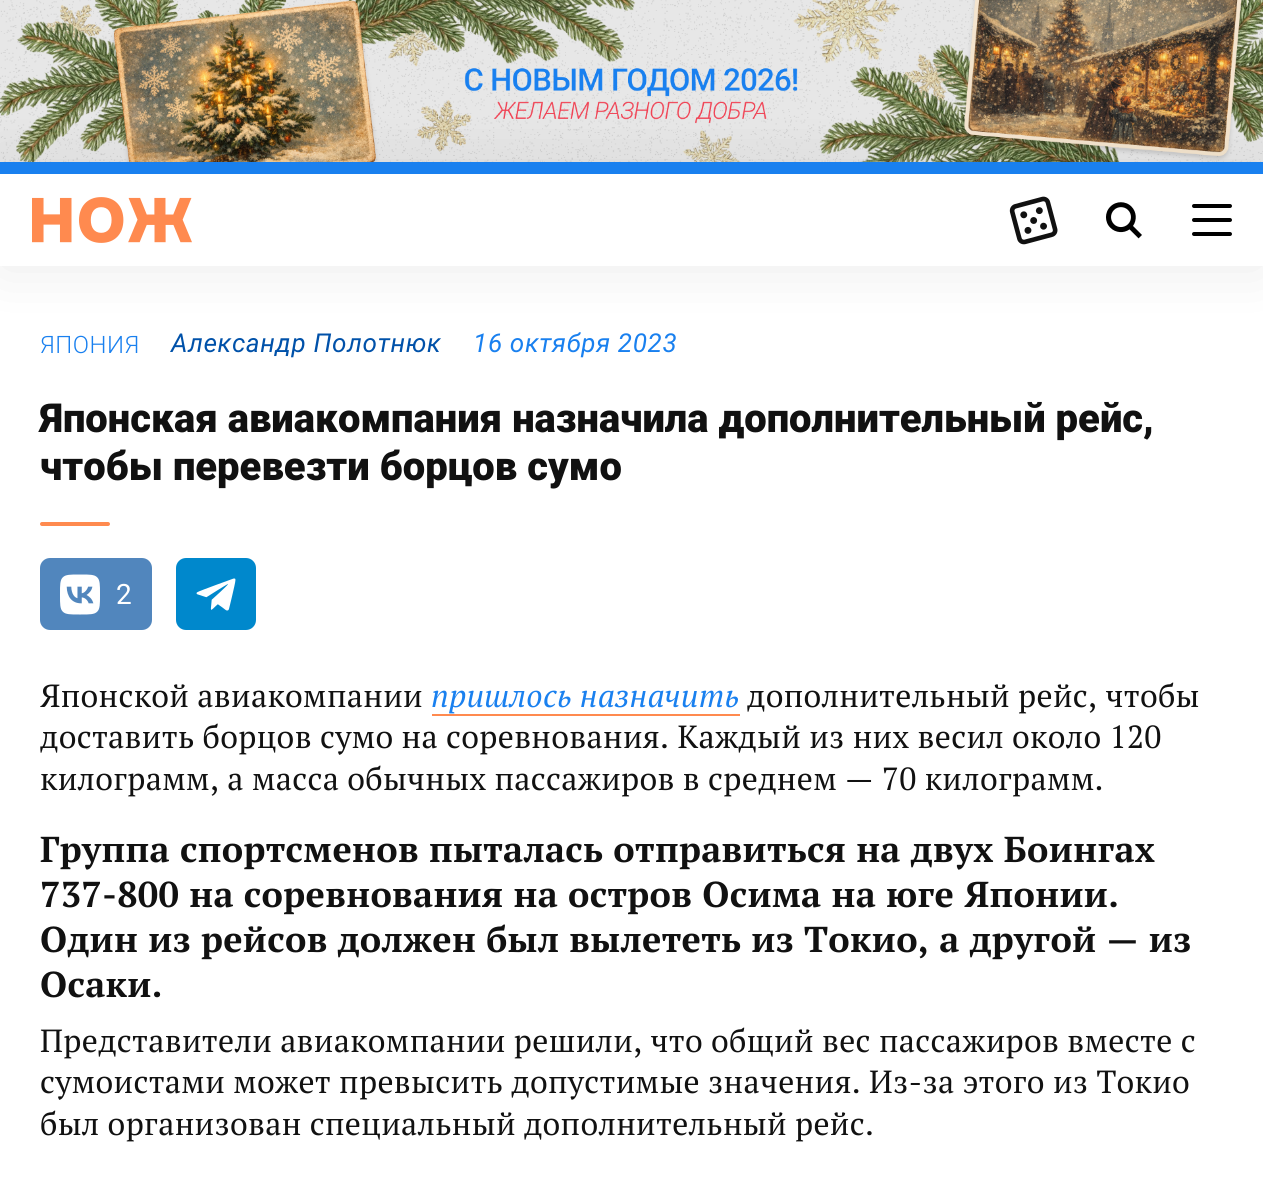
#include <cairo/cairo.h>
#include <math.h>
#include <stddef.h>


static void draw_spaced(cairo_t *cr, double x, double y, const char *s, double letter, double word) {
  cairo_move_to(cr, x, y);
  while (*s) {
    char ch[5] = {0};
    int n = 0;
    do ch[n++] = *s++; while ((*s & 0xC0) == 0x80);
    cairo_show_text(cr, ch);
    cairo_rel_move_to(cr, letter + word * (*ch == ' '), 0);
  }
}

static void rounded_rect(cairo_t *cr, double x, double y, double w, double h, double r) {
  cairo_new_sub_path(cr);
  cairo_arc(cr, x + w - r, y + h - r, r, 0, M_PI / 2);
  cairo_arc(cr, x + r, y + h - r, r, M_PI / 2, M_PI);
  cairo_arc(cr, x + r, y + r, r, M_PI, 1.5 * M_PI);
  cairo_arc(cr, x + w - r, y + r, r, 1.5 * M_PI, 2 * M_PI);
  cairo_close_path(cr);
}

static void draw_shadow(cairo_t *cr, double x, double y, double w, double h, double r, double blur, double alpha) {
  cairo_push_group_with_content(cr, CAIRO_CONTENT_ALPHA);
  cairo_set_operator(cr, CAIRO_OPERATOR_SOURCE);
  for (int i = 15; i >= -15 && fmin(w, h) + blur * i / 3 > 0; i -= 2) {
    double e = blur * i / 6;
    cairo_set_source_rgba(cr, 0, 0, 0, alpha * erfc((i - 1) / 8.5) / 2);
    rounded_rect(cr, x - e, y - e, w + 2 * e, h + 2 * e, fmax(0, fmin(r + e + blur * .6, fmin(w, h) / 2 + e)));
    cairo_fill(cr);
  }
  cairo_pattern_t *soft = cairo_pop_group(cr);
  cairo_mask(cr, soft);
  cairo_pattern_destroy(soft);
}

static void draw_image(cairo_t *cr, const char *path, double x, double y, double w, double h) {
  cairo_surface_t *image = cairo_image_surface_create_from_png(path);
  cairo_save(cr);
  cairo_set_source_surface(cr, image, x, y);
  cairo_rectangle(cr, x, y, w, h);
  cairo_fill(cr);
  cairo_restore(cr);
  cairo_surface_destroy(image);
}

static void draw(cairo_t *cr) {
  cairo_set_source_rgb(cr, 1, 1, 1);
  cairo_paint(cr);
  draw_image(cr, "images/1.png", 0, 0, 1263, 162);
  cairo_set_source_rgb(cr, 0, 0, 0);
  draw_shadow(cr, 0, 164, 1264, 104, 0, 30, 0.08);
  cairo_set_source_rgb(cr, 1, 1, 1);
  cairo_rectangle(cr, 0, 174, 1263, 92);
  cairo_fill(cr);
  cairo_set_source_rgb(cr, 25 / 255.0, 128 / 255.0, 239 / 255.0);
  cairo_rectangle(cr, 0, 162, 1263, 12);
  cairo_fill(cr);
  draw_image(cr, "images/2.png", 32, 197, 160, 46);
  draw_image(cr, "images/3.png", 1009, 196, 49, 49);
  draw_image(cr, "images/4.png", 1106, 202, 36, 37);
  cairo_set_source_rgb(cr, 0, 0, 0);
  rounded_rect(cr, 1192, 204, 40, 4, 2);
  cairo_fill(cr);
  rounded_rect(cr, 1192, 218, 40, 4, 2);
  cairo_fill(cr);
  rounded_rect(cr, 1192, 232, 40, 4, 2);
  cairo_fill(cr);
  cairo_set_source_rgb(cr, 1, 138 / 255.0, 79 / 255.0);
  rounded_rect(cr, 40, 522, 70, 4, 2);
  cairo_fill(cr);
  cairo_set_source_rgb(cr, 81 / 255.0, 134 / 255.0, 189 / 255.0);
  rounded_rect(cr, 40, 558, 112, 72, 10);
  cairo_fill(cr);
  draw_image(cr, "images/5.png", 60, 574, 40, 41);
  cairo_set_source_rgb(cr, 0, 136 / 255.0, 204 / 255.0);
  rounded_rect(cr, 176, 558, 80, 72, 10);
  cairo_fill(cr);
  draw_image(cr, "images/6.png", 196, 578, 40, 33);
  cairo_set_source_rgb(cr, 1, 138 / 255.0, 79 / 255.0);
  cairo_rectangle(cr, 432, 714, 308, 2);
  cairo_fill(cr);
  cairo_select_font_face(cr, "Roboto Light", CAIRO_FONT_SLANT_NORMAL, CAIRO_FONT_WEIGHT_NORMAL);
  cairo_set_font_size(cr, 24);
  cairo_set_source_rgb(cr, 25 / 255.0, 128 / 255.0, 239 / 255.0);
  draw_spaced(cr, 40, 353, "ЯПОНИЯ", 0.5, 0);
  cairo_select_font_face(cr, "Roboto", CAIRO_FONT_SLANT_ITALIC, CAIRO_FONT_WEIGHT_NORMAL);
  cairo_set_font_size(cr, 26);
  cairo_set_source_rgb(cr, 0, 81 / 255.0, 169 / 255.0);
  draw_spaced(cr, 171, 352, "Александр Полотнюк", 0.6, 0);
  cairo_set_source_rgb(cr, 25 / 255.0, 128 / 255.0, 239 / 255.0);
  draw_spaced(cr, 473, 352, "16 октября 2023", 0.6, 0);
  cairo_select_font_face(cr, "Roboto Black", CAIRO_FONT_SLANT_NORMAL, CAIRO_FONT_WEIGHT_NORMAL);
  cairo_set_font_size(cr, 40);
  cairo_set_source_rgb(cr, 17 / 255.0, 17 / 255.0, 17 / 255.0);
  cairo_move_to(cr, 40, 432);
  cairo_show_text(cr, "Японская авиакомпания назначила дополнительный рейс,");
  cairo_move_to(cr, 40, 480);
  cairo_show_text(cr, "чтобы перевезти борцов сумо");
  cairo_select_font_face(cr, "Roboto", CAIRO_FONT_SLANT_NORMAL, CAIRO_FONT_WEIGHT_NORMAL);
  cairo_set_font_size(cr, 28);
  cairo_set_source_rgb(cr, 1, 1, 1);
  cairo_move_to(cr, 116, 604);
  cairo_show_text(cr, "2");
  cairo_select_font_face(cr, "PT Serif", CAIRO_FONT_SLANT_NORMAL, CAIRO_FONT_WEIGHT_NORMAL);
  cairo_set_font_size(cr, 32);
  cairo_set_source_rgb(cr, 17 / 255.0, 17 / 255.0, 17 / 255.0);
  draw_spaced(cr, 40, 707, "Японской авиакомпании", 0.32, 0);
  cairo_select_font_face(cr, "PT Serif", CAIRO_FONT_SLANT_ITALIC, CAIRO_FONT_WEIGHT_NORMAL);
  cairo_set_source_rgb(cr, 25 / 255.0, 128 / 255.0, 239 / 255.0);
  draw_spaced(cr, 431, 707, "пришлось назначить", 0.32, 0);
  cairo_select_font_face(cr, "PT Serif", CAIRO_FONT_SLANT_NORMAL, CAIRO_FONT_WEIGHT_NORMAL);
  cairo_set_source_rgb(cr, 17 / 255.0, 17 / 255.0, 17 / 255.0);
  draw_spaced(cr, 747, 707, "дополнительный рейс, чтобы", 0.32, 0);
  draw_spaced(cr, 40, 748, "доставить борцов сумо на соревнования. Каждый из них весил около 120", 0.32, 0);
  draw_spaced(cr, 40, 790, "килограмм, а масса обычных пассажиров в среднем — 70 килограмм.", 0.32, 0);
  cairo_select_font_face(cr, "PT Serif", CAIRO_FONT_SLANT_NORMAL, CAIRO_FONT_WEIGHT_BOLD);
  cairo_set_font_size(cr, 36);
  draw_spaced(cr, 40, 862, "Группа спортсменов пыталась отправиться на двух Боингах", 0.32, 0);
  draw_spaced(cr, 40, 907, "737-800 на соревнования на остров Осима на юге Японии.", 0.32, 0);
  draw_spaced(cr, 40, 952, "Один из рейсов должен был вылететь из Токио, а другой — из", 0.32, 0);
  draw_spaced(cr, 40, 997, "Осаки.", 0.32, 0);
  cairo_select_font_face(cr, "PT Serif", CAIRO_FONT_SLANT_NORMAL, CAIRO_FONT_WEIGHT_NORMAL);
  cairo_set_font_size(cr, 32);
  draw_spaced(cr, 40, 1052, "Представители авиакомпании решили, что общий вес пассажиров вместе с", 0.32, 0);
  draw_spaced(cr, 40, 1093, "сумоистами может превысить допустимые значения. Из-за этого из Токио", 0.32, 0);
  draw_spaced(cr, 40, 1135, "был организован специальный дополнительный рейс.", 0.32, 0);
}

int main(void) {
  cairo_surface_t *surface = cairo_image_surface_create(CAIRO_FORMAT_RGB24, 1263, 1184);
  cairo_t *cr = cairo_create(surface);
  cairo_font_options_t *options = cairo_font_options_create();
  cairo_font_options_set_hint_metrics(options, CAIRO_HINT_METRICS_OFF);
  cairo_font_options_set_hint_style(options, CAIRO_HINT_STYLE_NONE);
  cairo_set_font_options(cr, options);
  cairo_set_miter_limit(cr, 4);
  draw(cr);
  cairo_surface_write_to_png(surface, "out.png");
  cairo_font_options_destroy(options);
  cairo_destroy(cr);
  cairo_surface_destroy(surface);
  return 0;
}
